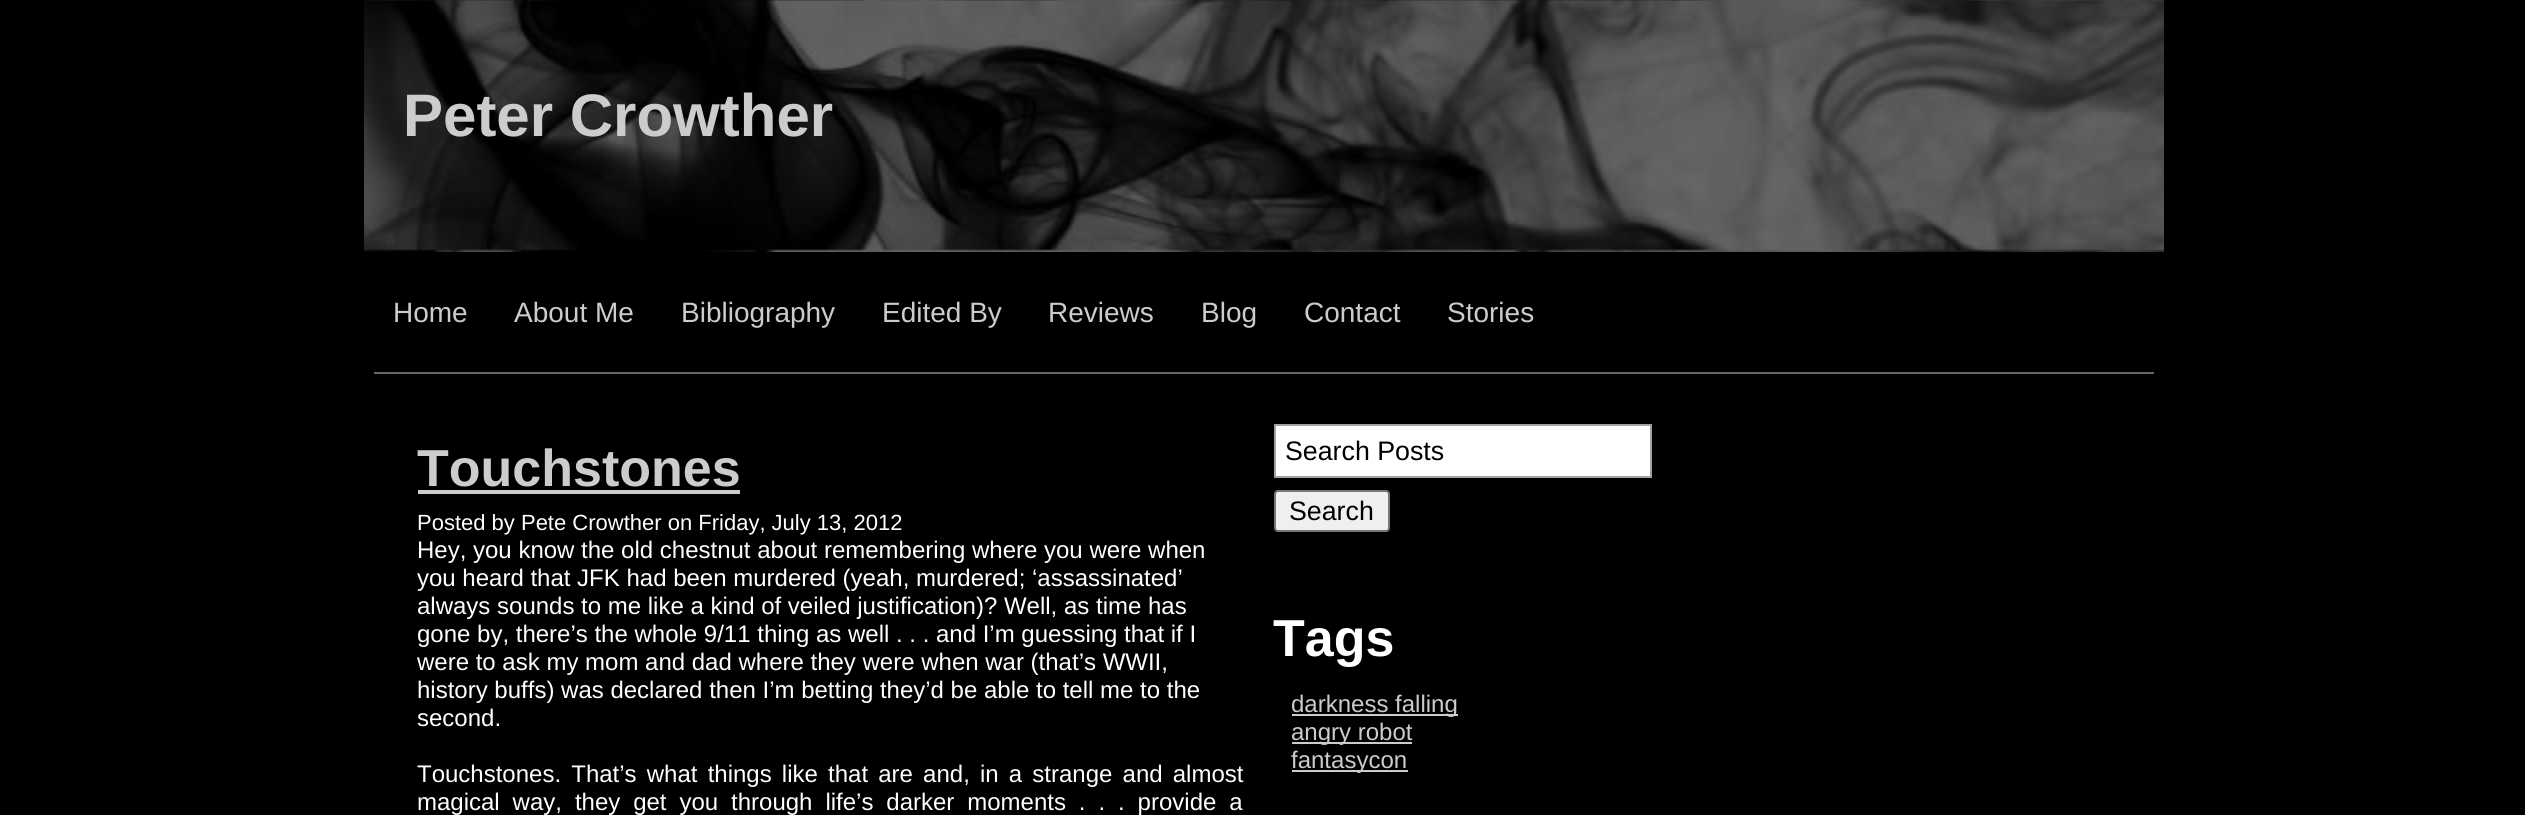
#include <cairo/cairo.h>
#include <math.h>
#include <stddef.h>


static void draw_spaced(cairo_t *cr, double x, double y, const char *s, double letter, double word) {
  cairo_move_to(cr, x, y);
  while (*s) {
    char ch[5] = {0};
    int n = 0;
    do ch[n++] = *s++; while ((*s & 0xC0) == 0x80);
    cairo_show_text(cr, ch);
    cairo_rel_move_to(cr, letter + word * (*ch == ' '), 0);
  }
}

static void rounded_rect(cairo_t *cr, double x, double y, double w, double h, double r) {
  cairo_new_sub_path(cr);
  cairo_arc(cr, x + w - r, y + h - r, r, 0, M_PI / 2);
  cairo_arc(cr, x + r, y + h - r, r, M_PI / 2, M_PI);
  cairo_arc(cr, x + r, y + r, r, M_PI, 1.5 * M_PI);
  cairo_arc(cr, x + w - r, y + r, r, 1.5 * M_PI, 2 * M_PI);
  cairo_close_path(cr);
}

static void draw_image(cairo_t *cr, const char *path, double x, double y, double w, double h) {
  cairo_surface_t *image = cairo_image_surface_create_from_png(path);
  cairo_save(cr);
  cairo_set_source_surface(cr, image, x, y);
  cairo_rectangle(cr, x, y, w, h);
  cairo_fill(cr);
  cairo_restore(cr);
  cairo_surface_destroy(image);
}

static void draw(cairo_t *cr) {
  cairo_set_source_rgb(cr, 0, 0, 0);
  cairo_paint(cr);
  draw_image(cr, "images/1.png", 364, 0, 1800, 252);
  cairo_set_source_rgb(cr, 102 / 255.0, 102 / 255.0, 102 / 255.0);
  cairo_rectangle(cr, 374, 372, 1780, 2);
  cairo_fill(cr);
  cairo_set_source_rgb(cr, 204 / 255.0, 204 / 255.0, 204 / 255.0);
  cairo_rectangle(cr, 418, 490, 322, 4);
  cairo_fill(cr);
  cairo_set_source_rgb(cr, 1, 1, 1);
  cairo_rectangle(cr, 1275, 425, 376, 52);
  cairo_fill_preserve(cr);
  cairo_set_source_rgb(cr, 161 / 255.0, 161 / 255.0, 161 / 255.0);
  cairo_stroke(cr);
  cairo_set_source_rgb(cr, 239 / 255.0, 239 / 255.0, 239 / 255.0);
  rounded_rect(cr, 1275, 491, 114, 40, 3);
  cairo_fill_preserve(cr);
  cairo_set_source_rgb(cr, 118 / 255.0, 118 / 255.0, 118 / 255.0);
  cairo_stroke(cr);
  cairo_set_source_rgb(cr, 204 / 255.0, 204 / 255.0, 204 / 255.0);
  cairo_rectangle(cr, 1292, 714, 166, 2);
  cairo_fill(cr);
  cairo_rectangle(cr, 1292, 742, 120, 2);
  cairo_fill(cr);
  cairo_rectangle(cr, 1292, 770, 116, 2);
  cairo_fill(cr);
  cairo_select_font_face(cr, "Liberation Sans", CAIRO_FONT_SLANT_NORMAL, CAIRO_FONT_WEIGHT_BOLD);
  cairo_set_font_size(cr, 60);
  cairo_move_to(cr, 403, 136);
  cairo_show_text(cr, "Peter Crowther");
  cairo_select_font_face(cr, "Liberation Sans", CAIRO_FONT_SLANT_NORMAL, CAIRO_FONT_WEIGHT_NORMAL);
  cairo_set_font_size(cr, 28);
  cairo_move_to(cr, 393, 322);
  cairo_show_text(cr, "Home");
  cairo_move_to(cr, 514, 322);
  cairo_show_text(cr, "About Me");
  cairo_move_to(cr, 681, 322);
  cairo_show_text(cr, "Bibliography");
  cairo_move_to(cr, 882, 322);
  cairo_show_text(cr, "Edited By");
  cairo_move_to(cr, 1048, 322);
  cairo_show_text(cr, "Reviews");
  cairo_move_to(cr, 1201, 322);
  cairo_show_text(cr, "Blog");
  cairo_move_to(cr, 1304, 322);
  cairo_show_text(cr, "Contact");
  cairo_move_to(cr, 1447, 322);
  cairo_show_text(cr, "Stories");
  cairo_select_font_face(cr, "Liberation Sans", CAIRO_FONT_SLANT_NORMAL, CAIRO_FONT_WEIGHT_BOLD);
  cairo_set_font_size(cr, 52);
  cairo_move_to(cr, 417, 486);
  cairo_show_text(cr, "Touchstones");
  cairo_select_font_face(cr, "Liberation Sans", CAIRO_FONT_SLANT_NORMAL, CAIRO_FONT_WEIGHT_NORMAL);
  cairo_set_font_size(cr, 22);
  cairo_set_source_rgb(cr, 1, 1, 1);
  cairo_move_to(cr, 417, 530);
  cairo_show_text(cr, "Posted by Pete Crowther on Friday, July 13, 2012");
  cairo_set_font_size(cr, 24);
  cairo_move_to(cr, 417, 558);
  cairo_show_text(cr, "Hey, you know the old chestnut about remembering where you were when");
  cairo_move_to(cr, 417, 586);
  cairo_show_text(cr, "you heard that JFK had been murdered (yeah, murdered; ‘assassinated’");
  cairo_move_to(cr, 417, 614);
  cairo_show_text(cr, "always sounds to me like a kind of veiled justification)? Well, as time has");
  cairo_move_to(cr, 417, 642);
  cairo_show_text(cr, "gone by, there’s the whole 9/11 thing as well . . . and I’m guessing that if I");
  cairo_move_to(cr, 417, 670);
  cairo_show_text(cr, "were to ask my mom and dad where they were when war (that’s WWII,");
  cairo_move_to(cr, 417, 698);
  cairo_show_text(cr, "history buffs) was declared then I’m betting they’d be able to tell me to the");
  cairo_move_to(cr, 417, 726);
  cairo_show_text(cr, "second.");
  draw_spaced(cr, 417, 782, "Touchstones. That’s what things like that are and, in a strange and almost", 0, 3.5);
  draw_spaced(cr, 417, 810, "magical way, they get you through life’s darker moments . . . provide a", 0, 6.25);
  cairo_set_font_size(cr, 26.75);
  cairo_set_source_rgb(cr, 0, 0, 0);
  cairo_move_to(cr, 1285, 460);
  cairo_show_text(cr, "Search Posts");
  cairo_move_to(cr, 1289, 520);
  cairo_show_text(cr, "Search");
  cairo_select_font_face(cr, "Liberation Sans", CAIRO_FONT_SLANT_NORMAL, CAIRO_FONT_WEIGHT_BOLD);
  cairo_set_font_size(cr, 52);
  cairo_set_source_rgb(cr, 1, 1, 1);
  cairo_move_to(cr, 1273, 656);
  cairo_show_text(cr, "Tags");
  cairo_select_font_face(cr, "Liberation Sans", CAIRO_FONT_SLANT_NORMAL, CAIRO_FONT_WEIGHT_NORMAL);
  cairo_set_font_size(cr, 24);
  cairo_set_source_rgb(cr, 204 / 255.0, 204 / 255.0, 204 / 255.0);
  cairo_move_to(cr, 1291, 712);
  cairo_show_text(cr, "darkness falling");
  cairo_move_to(cr, 1291, 740);
  cairo_show_text(cr, "angry robot");
  cairo_move_to(cr, 1291, 768);
  cairo_show_text(cr, "fantasycon");
}

int main(void) {
  cairo_surface_t *surface = cairo_image_surface_create(CAIRO_FORMAT_RGB24, 2525, 815);
  cairo_t *cr = cairo_create(surface);
  cairo_font_options_t *options = cairo_font_options_create();
  cairo_font_options_set_hint_metrics(options, CAIRO_HINT_METRICS_OFF);
  cairo_font_options_set_hint_style(options, CAIRO_HINT_STYLE_NONE);
  cairo_set_font_options(cr, options);
  cairo_set_miter_limit(cr, 4);
  draw(cr);
  cairo_surface_write_to_png(surface, "out.png");
  cairo_font_options_destroy(options);
  cairo_destroy(cr);
  cairo_surface_destroy(surface);
  return 0;
}
